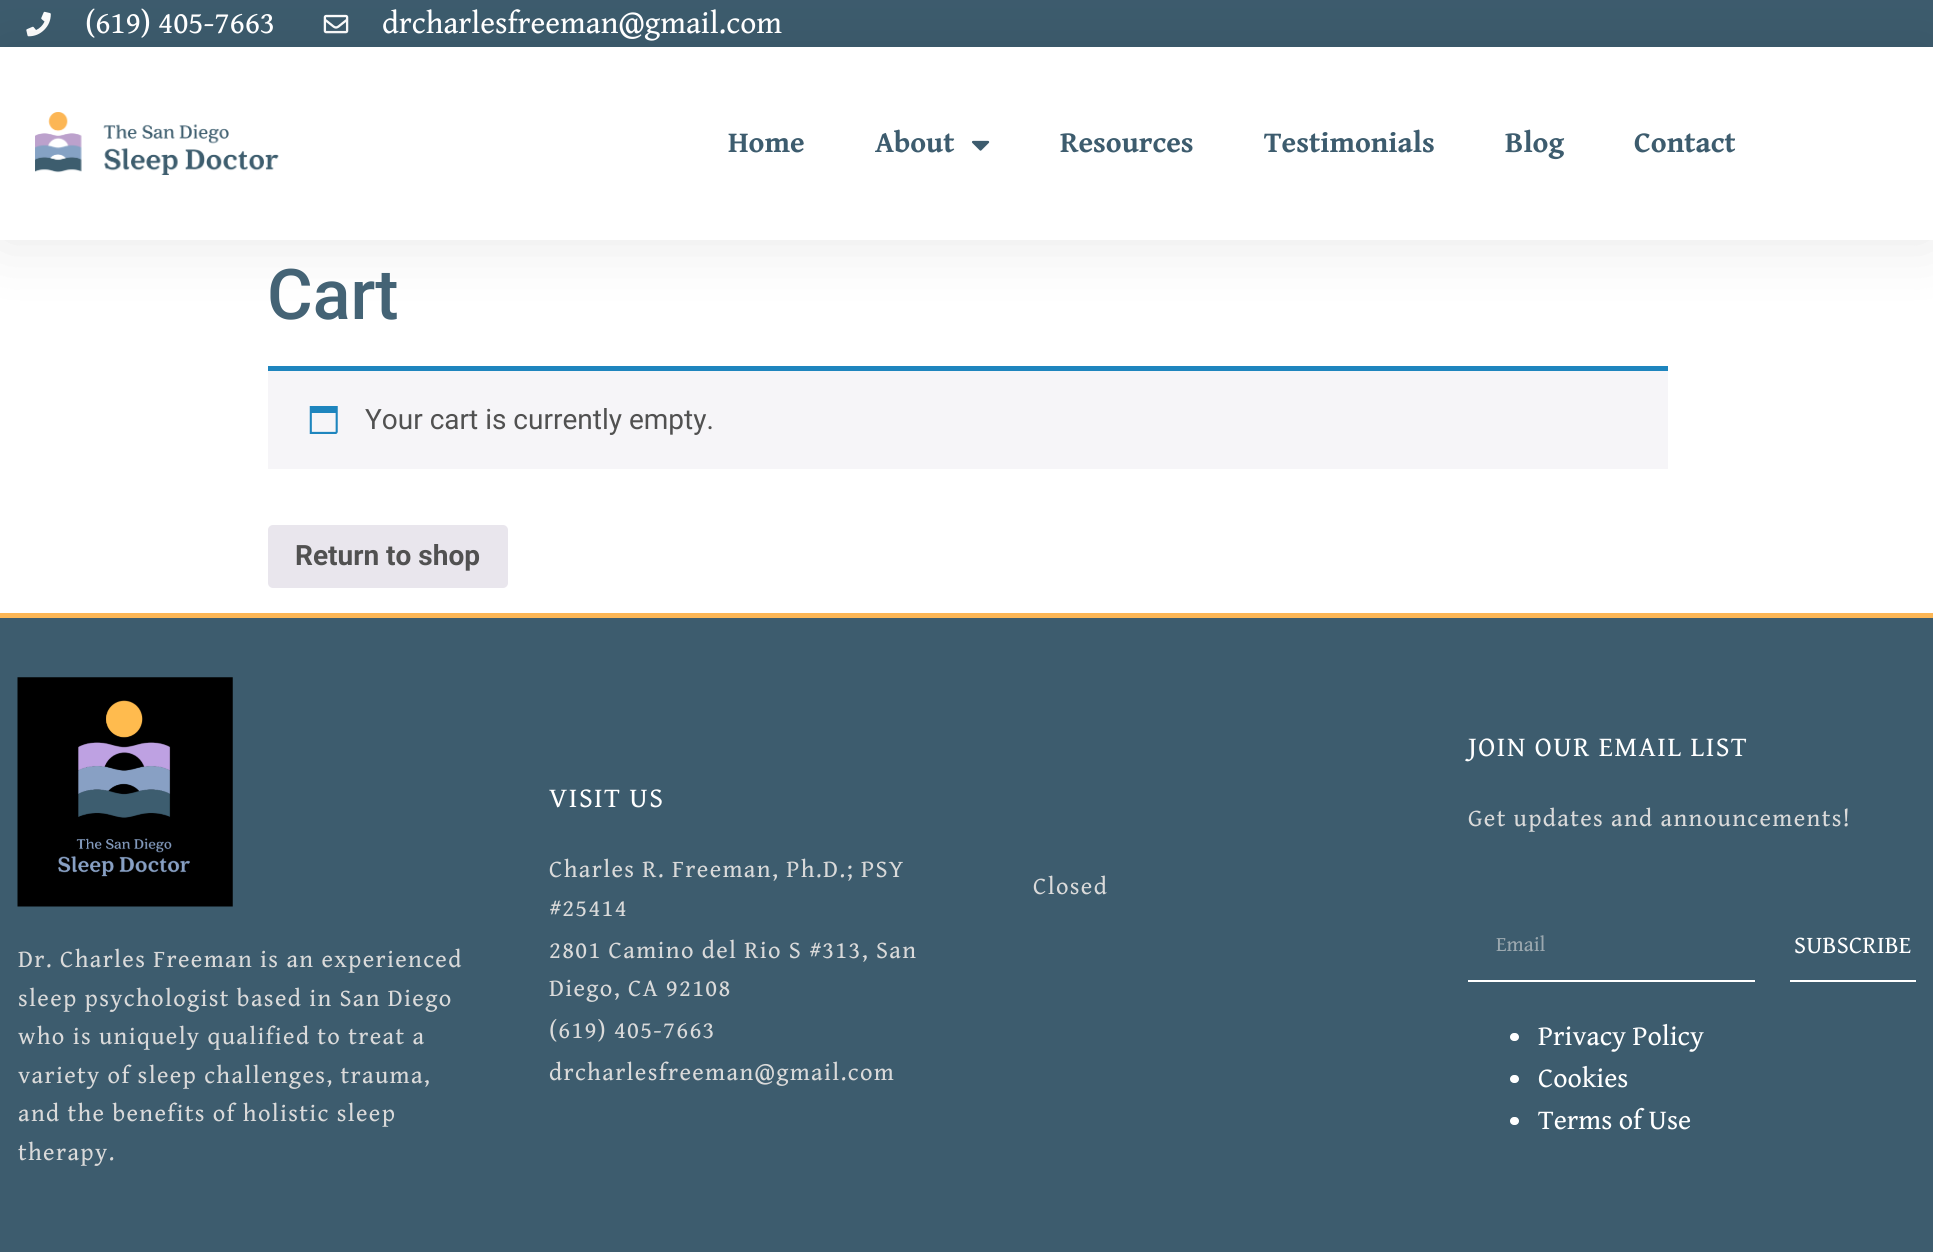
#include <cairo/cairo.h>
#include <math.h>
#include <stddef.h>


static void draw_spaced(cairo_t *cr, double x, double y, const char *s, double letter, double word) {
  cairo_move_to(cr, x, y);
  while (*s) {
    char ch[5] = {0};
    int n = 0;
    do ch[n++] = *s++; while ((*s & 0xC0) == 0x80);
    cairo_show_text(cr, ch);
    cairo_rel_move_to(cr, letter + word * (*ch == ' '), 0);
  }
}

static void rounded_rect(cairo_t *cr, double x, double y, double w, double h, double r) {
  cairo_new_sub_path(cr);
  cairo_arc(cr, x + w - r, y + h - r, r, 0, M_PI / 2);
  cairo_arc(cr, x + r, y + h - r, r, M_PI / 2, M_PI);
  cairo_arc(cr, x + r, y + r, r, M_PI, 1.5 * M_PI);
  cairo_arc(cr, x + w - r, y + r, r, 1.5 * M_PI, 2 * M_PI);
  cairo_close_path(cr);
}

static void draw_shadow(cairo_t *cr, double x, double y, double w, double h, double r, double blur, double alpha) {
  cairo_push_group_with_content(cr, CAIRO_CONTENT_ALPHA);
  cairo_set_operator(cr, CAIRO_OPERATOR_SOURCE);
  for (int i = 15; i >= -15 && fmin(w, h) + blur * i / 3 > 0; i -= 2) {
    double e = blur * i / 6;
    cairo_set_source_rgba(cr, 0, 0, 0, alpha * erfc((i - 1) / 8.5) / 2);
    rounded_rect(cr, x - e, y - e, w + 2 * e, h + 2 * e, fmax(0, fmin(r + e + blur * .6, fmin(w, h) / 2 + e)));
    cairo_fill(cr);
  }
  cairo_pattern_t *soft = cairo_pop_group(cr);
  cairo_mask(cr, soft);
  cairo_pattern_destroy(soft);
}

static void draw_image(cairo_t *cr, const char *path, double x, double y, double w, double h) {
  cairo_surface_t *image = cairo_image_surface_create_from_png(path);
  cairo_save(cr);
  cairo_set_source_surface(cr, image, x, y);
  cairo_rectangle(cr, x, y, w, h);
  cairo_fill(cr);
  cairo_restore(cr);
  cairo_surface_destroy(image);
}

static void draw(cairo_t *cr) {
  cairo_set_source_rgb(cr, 1, 1, 1);
  cairo_paint(cr);
  cairo_set_source_rgb(cr, 61 / 255.0, 92 / 255.0, 110 / 255.0);
  cairo_rectangle(cr, 0, 0, 1933, 47);
  cairo_fill(cr);
  draw_image(cr, "images/1.png", 26, 11, 25, 26);
  draw_image(cr, "images/2.png", 323, 14, 26, 20);
  cairo_set_source_rgb(cr, 0, 0, 0);
  draw_shadow(cr, 0, 47, 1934, 193, 0, 33, 0.1);
  cairo_set_source_rgb(cr, 1, 1, 1);
  cairo_rectangle(cr, 0, 47, 1933, 193);
  cairo_fill(cr);
  draw_image(cr, "images/3.png", 35, 112, 244, 63);
  draw_image(cr, "images/4.png", 971, 140, 19, 11);
  cairo_set_source_rgb(cr, 246 / 255.0, 245 / 255.0, 248 / 255.0);
  cairo_rectangle(cr, 268, 371, 1400, 98);
  cairo_fill(cr);
  cairo_set_source_rgb(cr, 30 / 255.0, 133 / 255.0, 190 / 255.0);
  cairo_rectangle(cr, 268, 366, 1400, 5);
  cairo_fill(cr);
  draw_image(cr, "images/5.png", 309, 406, 29, 28);
  cairo_set_source_rgb(cr, 233 / 255.0, 230 / 255.0, 237 / 255.0);
  rounded_rect(cr, 268, 525, 240, 63, 5);
  cairo_fill(cr);
  cairo_set_source_rgb(cr, 61 / 255.0, 92 / 255.0, 110 / 255.0);
  cairo_rectangle(cr, 0, 618, 1933, 634);
  cairo_fill(cr);
  cairo_set_source_rgb(cr, 252 / 255.0, 182 / 255.0, 85 / 255.0);
  cairo_rectangle(cr, 0, 613, 1933, 5);
  cairo_fill(cr);
  cairo_set_source_rgb(cr, 1, 1, 1);
  cairo_rectangle(cr, 1468, 980, 287, 2);
  cairo_fill(cr);
  cairo_rectangle(cr, 1790, 980, 126, 2);
  cairo_fill(cr);
  rounded_rect(cr, 1510, 1033, 9, 8, 4);
  cairo_fill(cr);
  rounded_rect(cr, 1510, 1075, 9, 8, 4);
  cairo_fill(cr);
  rounded_rect(cr, 1510, 1117, 9, 8, 4);
  cairo_fill(cr);
  draw_image(cr, "images/6.png", 17, 677, 216, 230);
  cairo_select_font_face(cr, "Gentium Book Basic", CAIRO_FONT_SLANT_NORMAL, CAIRO_FONT_WEIGHT_NORMAL);
  cairo_set_font_size(cr, 31.5);
  cairo_move_to(cr, 85, 33);
  cairo_show_text(cr, "(619) 405-7663");
  cairo_move_to(cr, 382, 33);
  cairo_show_text(cr, "drcharlesfreeman@gmail.com");
  cairo_select_font_face(cr, "Gentium Book Basic", CAIRO_FONT_SLANT_NORMAL, CAIRO_FONT_WEIGHT_BOLD);
  cairo_set_font_size(cr, 29.75);
  cairo_set_source_rgb(cr, 61 / 255.0, 92 / 255.0, 110 / 255.0);
  cairo_move_to(cr, 728, 152);
  cairo_show_text(cr, "Home");
  cairo_move_to(cr, 875, 152);
  cairo_show_text(cr, "About");
  cairo_move_to(cr, 1060, 152);
  cairo_show_text(cr, "Resources");
  cairo_move_to(cr, 1264, 152);
  cairo_show_text(cr, "Testimonials");
  cairo_move_to(cr, 1505, 152);
  cairo_show_text(cr, "Blog");
  cairo_move_to(cr, 1634, 152);
  cairo_show_text(cr, "Contact");
  cairo_select_font_face(cr, "Roboto Medium", CAIRO_FONT_SLANT_NORMAL, CAIRO_FONT_WEIGHT_NORMAL);
  cairo_set_font_size(cr, 70);
  cairo_set_source_rgb(cr, 68 / 255.0, 99 / 255.0, 117 / 255.0);
  cairo_move_to(cr, 267, 319);
  cairo_show_text(cr, "Cart");
  cairo_select_font_face(cr, "Roboto", CAIRO_FONT_SLANT_NORMAL, CAIRO_FONT_WEIGHT_NORMAL);
  cairo_set_font_size(cr, 28);
  cairo_set_source_rgb(cr, 81 / 255.0, 81 / 255.0, 81 / 255.0);
  cairo_move_to(cr, 365, 429);
  cairo_show_text(cr, "Your cart is currently empty.");
  cairo_select_font_face(cr, "Roboto", CAIRO_FONT_SLANT_NORMAL, CAIRO_FONT_WEIGHT_BOLD);
  cairo_move_to(cr, 295, 565);
  cairo_show_text(cr, "Return to shop");
  cairo_select_font_face(cr, "Gentium Book Basic", CAIRO_FONT_SLANT_NORMAL, CAIRO_FONT_WEIGHT_NORMAL);
  cairo_set_source_rgb(cr, 1, 1, 1);
  draw_spaced(cr, 549, 807, "VISIT US", 1.5, 0);
  cairo_set_font_size(cr, 24.5);
  cairo_set_source_rgb(cr, 218 / 255.0, 218 / 255.0, 218 / 255.0);
  draw_spaced(cr, 549, 877, "Charles R. Freeman, Ph.D.; PSY", 1.35, 0);
  draw_spaced(cr, 549, 916, "#25414", 1.35, 0);
  draw_spaced(cr, 549, 958, "2801 Camino del Rio S #313, San", 1.35, 0);
  draw_spaced(cr, 549, 996, "Diego, CA 92108", 1.35, 0);
  draw_spaced(cr, 549, 1038, "(619) 405-7663", 1.35, 0);
  draw_spaced(cr, 549, 1080, "drcharlesfreeman@gmail.com", 1.35, 0);
  draw_spaced(cr, 1033, 894, "Closed", 1.35, 0);
  cairo_set_font_size(cr, 28);
  cairo_set_source_rgb(cr, 1, 1, 1);
  draw_spaced(cr, 1468, 756, "JOIN OUR EMAIL LIST", 1.5, 0);
  cairo_set_font_size(cr, 24.5);
  cairo_set_source_rgb(cr, 218 / 255.0, 218 / 255.0, 218 / 255.0);
  draw_spaced(cr, 1468, 826, "Get updates and announcements!", 1.35, 0);
  cairo_set_font_size(cr, 21);
  cairo_set_source_rgb(cr, 155 / 255.0, 168 / 255.0, 175 / 255.0);
  cairo_move_to(cr, 1496, 951);
  cairo_show_text(cr, "Email");
  cairo_set_font_size(cr, 24.5);
  cairo_set_source_rgb(cr, 1, 1, 1);
  draw_spaced(cr, 1794, 953, "SUBSCRIBE", 0.25, 0);
  cairo_set_font_size(cr, 28);
  cairo_move_to(cr, 1538, 1045);
  cairo_show_text(cr, "Privacy Policy");
  cairo_move_to(cr, 1538, 1087);
  cairo_show_text(cr, "Cookies");
  cairo_move_to(cr, 1538, 1129);
  cairo_show_text(cr, "Terms of Use");
  cairo_set_font_size(cr, 24.5);
  cairo_set_source_rgb(cr, 218 / 255.0, 218 / 255.0, 218 / 255.0);
  draw_spaced(cr, 18, 967, "Dr. Charles Freeman is an experienced", 1.35, 0);
  draw_spaced(cr, 18, 1006, "sleep psychologist based in San Diego", 1.35, 0);
  draw_spaced(cr, 18, 1044, "who is uniquely qualified to treat a", 1.35, 0);
  draw_spaced(cr, 18, 1083, "variety of sleep challenges, trauma,", 1.35, 0);
  draw_spaced(cr, 18, 1121, "and the benefits of holistic sleep", 1.35, 0);
  draw_spaced(cr, 18, 1160, "therapy.", 1.35, 0);
}

int main(void) {
  cairo_surface_t *surface = cairo_image_surface_create(CAIRO_FORMAT_RGB24, 1933, 1252);
  cairo_t *cr = cairo_create(surface);
  cairo_font_options_t *options = cairo_font_options_create();
  cairo_font_options_set_hint_metrics(options, CAIRO_HINT_METRICS_OFF);
  cairo_font_options_set_hint_style(options, CAIRO_HINT_STYLE_NONE);
  cairo_set_font_options(cr, options);
  cairo_set_miter_limit(cr, 4);
  draw(cr);
  cairo_surface_write_to_png(surface, "out.png");
  cairo_font_options_destroy(options);
  cairo_destroy(cr);
  cairo_surface_destroy(surface);
  return 0;
}
